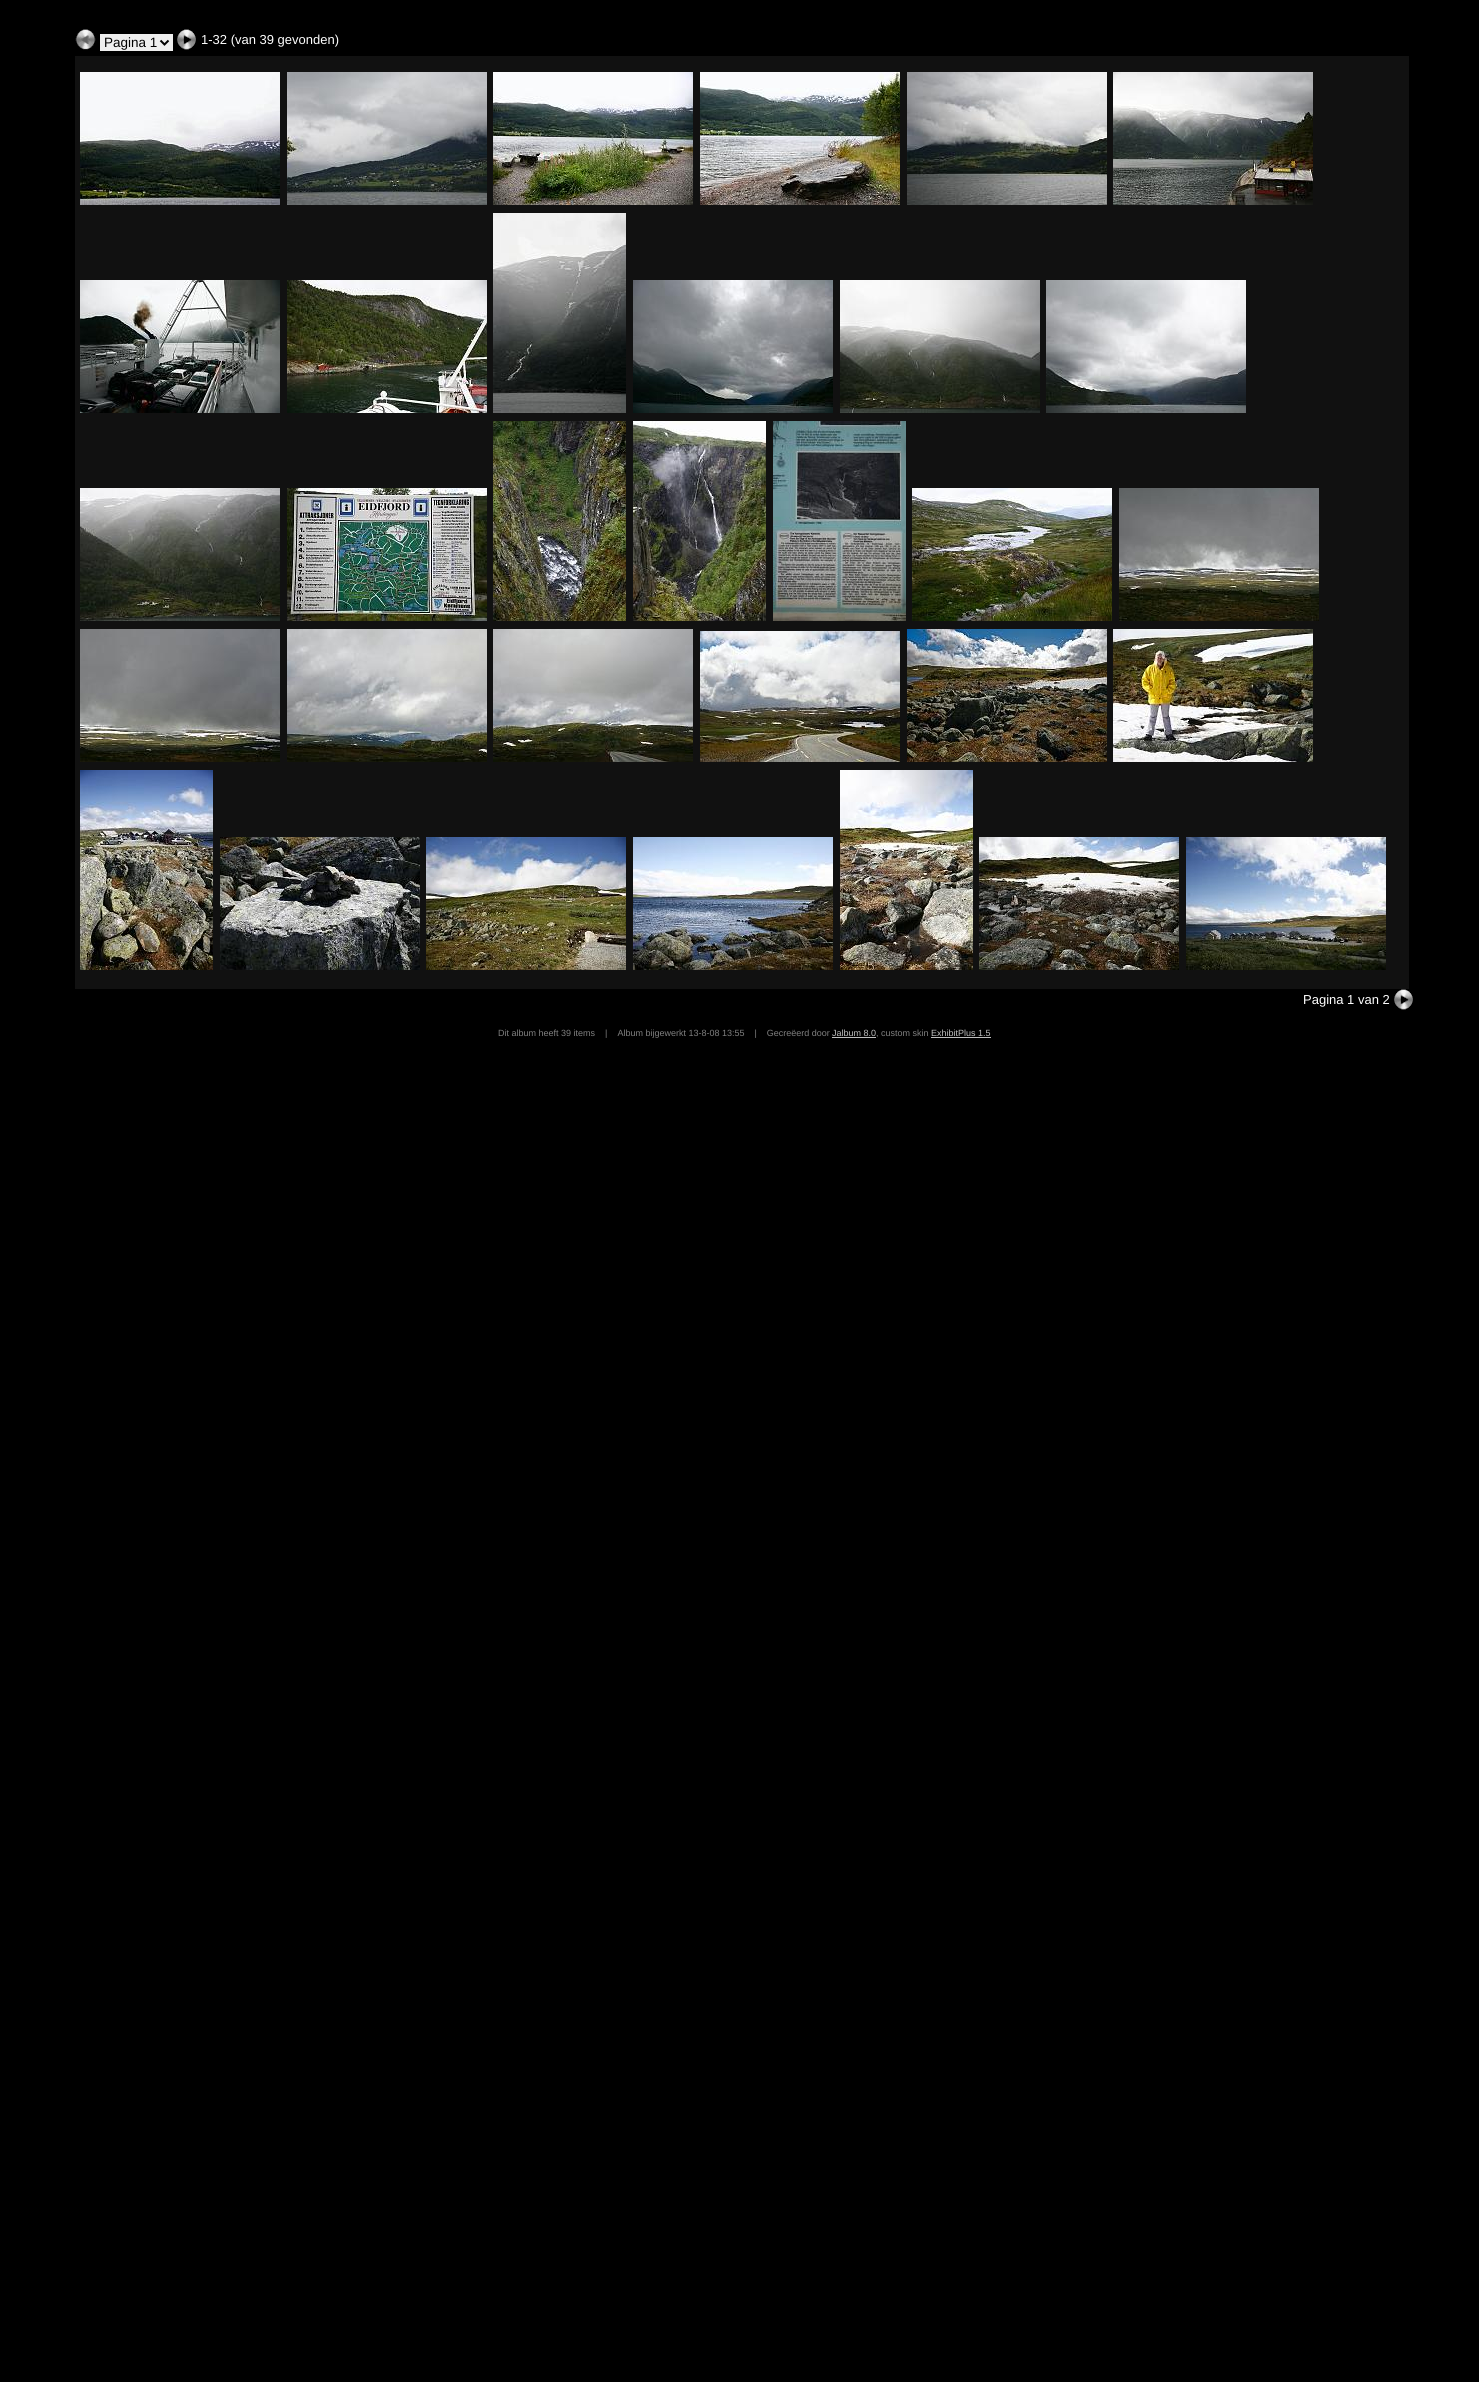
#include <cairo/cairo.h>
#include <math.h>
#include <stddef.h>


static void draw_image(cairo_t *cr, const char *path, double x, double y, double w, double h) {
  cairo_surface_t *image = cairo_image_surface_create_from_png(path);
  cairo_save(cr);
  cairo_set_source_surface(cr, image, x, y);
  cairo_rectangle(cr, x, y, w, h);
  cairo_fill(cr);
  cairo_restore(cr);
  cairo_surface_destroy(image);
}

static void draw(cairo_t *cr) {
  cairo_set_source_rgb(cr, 0, 0, 0);
  cairo_paint(cr);
  draw_image(cr, "images/1.png", 75, 29, 21, 21);
  cairo_set_source_rgb(cr, 239 / 255.0, 239 / 255.0, 239 / 255.0);
  cairo_rectangle(cr, 100, 34, 73, 17);
  cairo_fill(cr);
  cairo_new_path(cr);
  cairo_move_to(cr, 160.5, 40.5);
  cairo_line_to(cr, 164.5, 44.5);
  cairo_line_to(cr, 168.5, 40.5);
  cairo_set_source_rgb(cr, 0, 0, 0);
  cairo_stroke(cr);
  draw_image(cr, "images/2.png", 177, 29, 19, 21);
  cairo_set_source_rgb(cr, 17 / 255.0, 17 / 255.0, 17 / 255.0);
  cairo_rectangle(cr, 75, 56, 1334, 933);
  cairo_fill(cr);
  draw_image(cr, "images/3.png", 80, 72, 200, 133);
  draw_image(cr, "images/4.png", 287, 72, 200, 133);
  draw_image(cr, "images/5.png", 493, 72, 200, 133);
  draw_image(cr, "images/6.png", 700, 72, 200, 133);
  draw_image(cr, "images/7.png", 907, 72, 200, 133);
  draw_image(cr, "images/8.png", 1113, 72, 200, 133);
  draw_image(cr, "images/9.png", 80, 280, 200, 133);
  draw_image(cr, "images/10.png", 287, 280, 200, 133);
  draw_image(cr, "images/11.png", 493, 213, 133, 200);
  draw_image(cr, "images/12.png", 633, 280, 200, 133);
  draw_image(cr, "images/13.png", 840, 280, 200, 133);
  draw_image(cr, "images/14.png", 1046, 280, 200, 133);
  draw_image(cr, "images/15.png", 80, 488, 200, 133);
  draw_image(cr, "images/16.png", 287, 488, 200, 133);
  draw_image(cr, "images/17.png", 493, 421, 133, 200);
  draw_image(cr, "images/18.png", 633, 421, 133, 200);
  draw_image(cr, "images/19.png", 773, 421, 133, 200);
  draw_image(cr, "images/20.png", 912, 488, 200, 133);
  draw_image(cr, "images/21.png", 1119, 488, 200, 133);
  draw_image(cr, "images/22.png", 80, 629, 200, 133);
  draw_image(cr, "images/23.png", 287, 629, 200, 133);
  draw_image(cr, "images/24.png", 493, 629, 200, 133);
  draw_image(cr, "images/25.png", 700, 631, 200, 131);
  draw_image(cr, "images/26.png", 907, 629, 200, 133);
  draw_image(cr, "images/27.png", 1113, 629, 200, 133);
  draw_image(cr, "images/28.png", 80, 770, 133, 200);
  draw_image(cr, "images/29.png", 220, 837, 200, 133);
  draw_image(cr, "images/30.png", 426, 837, 200, 133);
  draw_image(cr, "images/31.png", 633, 837, 200, 133);
  draw_image(cr, "images/32.png", 840, 770, 133, 200);
  draw_image(cr, "images/33.png", 979, 837, 200, 133);
  draw_image(cr, "images/34.png", 1186, 837, 200, 133);
  draw_image(cr, "images/2.png", 1394, 989, 19, 21);
  cairo_set_source_rgb(cr, 191 / 255.0, 191 / 255.0, 191 / 255.0);
  cairo_rectangle(cr, 832, 1037, 44, 1);
  cairo_fill(cr);
  cairo_rectangle(cr, 931, 1037, 60, 1);
  cairo_fill(cr);
  cairo_select_font_face(cr, "Liberation Sans", CAIRO_FONT_SLANT_NORMAL, CAIRO_FONT_WEIGHT_NORMAL);
  cairo_set_font_size(cr, 13.5);
  cairo_set_source_rgb(cr, 0, 0, 0);
  cairo_move_to(cr, 104, 47);
  cairo_show_text(cr, "Pagina 1");
  cairo_set_font_size(cr, 13);
  cairo_set_source_rgb(cr, 1, 1, 1);
  cairo_move_to(cr, 201, 44);
  cairo_show_text(cr, "1-32 (van 39 gevonden)");
  cairo_move_to(cr, 1303, 1004);
  cairo_show_text(cr, "Pagina 1 van 2");
  cairo_set_font_size(cr, 9);
  cairo_set_source_rgb(cr, 128 / 255.0, 128 / 255.0, 128 / 255.0);
  cairo_move_to(cr, 498, 1036);
  cairo_show_text(cr, "Dit album heeft 39 items    |    Album bijgewerkt 13-8-08 13:55    |    Gecreëerd door");
  cairo_set_source_rgb(cr, 191 / 255.0, 191 / 255.0, 191 / 255.0);
  cairo_move_to(cr, 832, 1036);
  cairo_show_text(cr, "Jalbum 8.0");
  cairo_set_source_rgb(cr, 128 / 255.0, 128 / 255.0, 128 / 255.0);
  cairo_move_to(cr, 876, 1036);
  cairo_show_text(cr, ", custom skin");
  cairo_set_source_rgb(cr, 191 / 255.0, 191 / 255.0, 191 / 255.0);
  cairo_move_to(cr, 931, 1036);
  cairo_show_text(cr, "ExhibitPlus 1.5");
}

int main(void) {
  cairo_surface_t *surface = cairo_image_surface_create(CAIRO_FORMAT_RGB24, 1479, 2382);
  cairo_t *cr = cairo_create(surface);
  cairo_font_options_t *options = cairo_font_options_create();
  cairo_font_options_set_hint_metrics(options, CAIRO_HINT_METRICS_OFF);
  cairo_font_options_set_hint_style(options, CAIRO_HINT_STYLE_NONE);
  cairo_set_font_options(cr, options);
  cairo_set_miter_limit(cr, 4);
  draw(cr);
  cairo_surface_write_to_png(surface, "out.png");
  cairo_font_options_destroy(options);
  cairo_destroy(cr);
  cairo_surface_destroy(surface);
  return 0;
}
